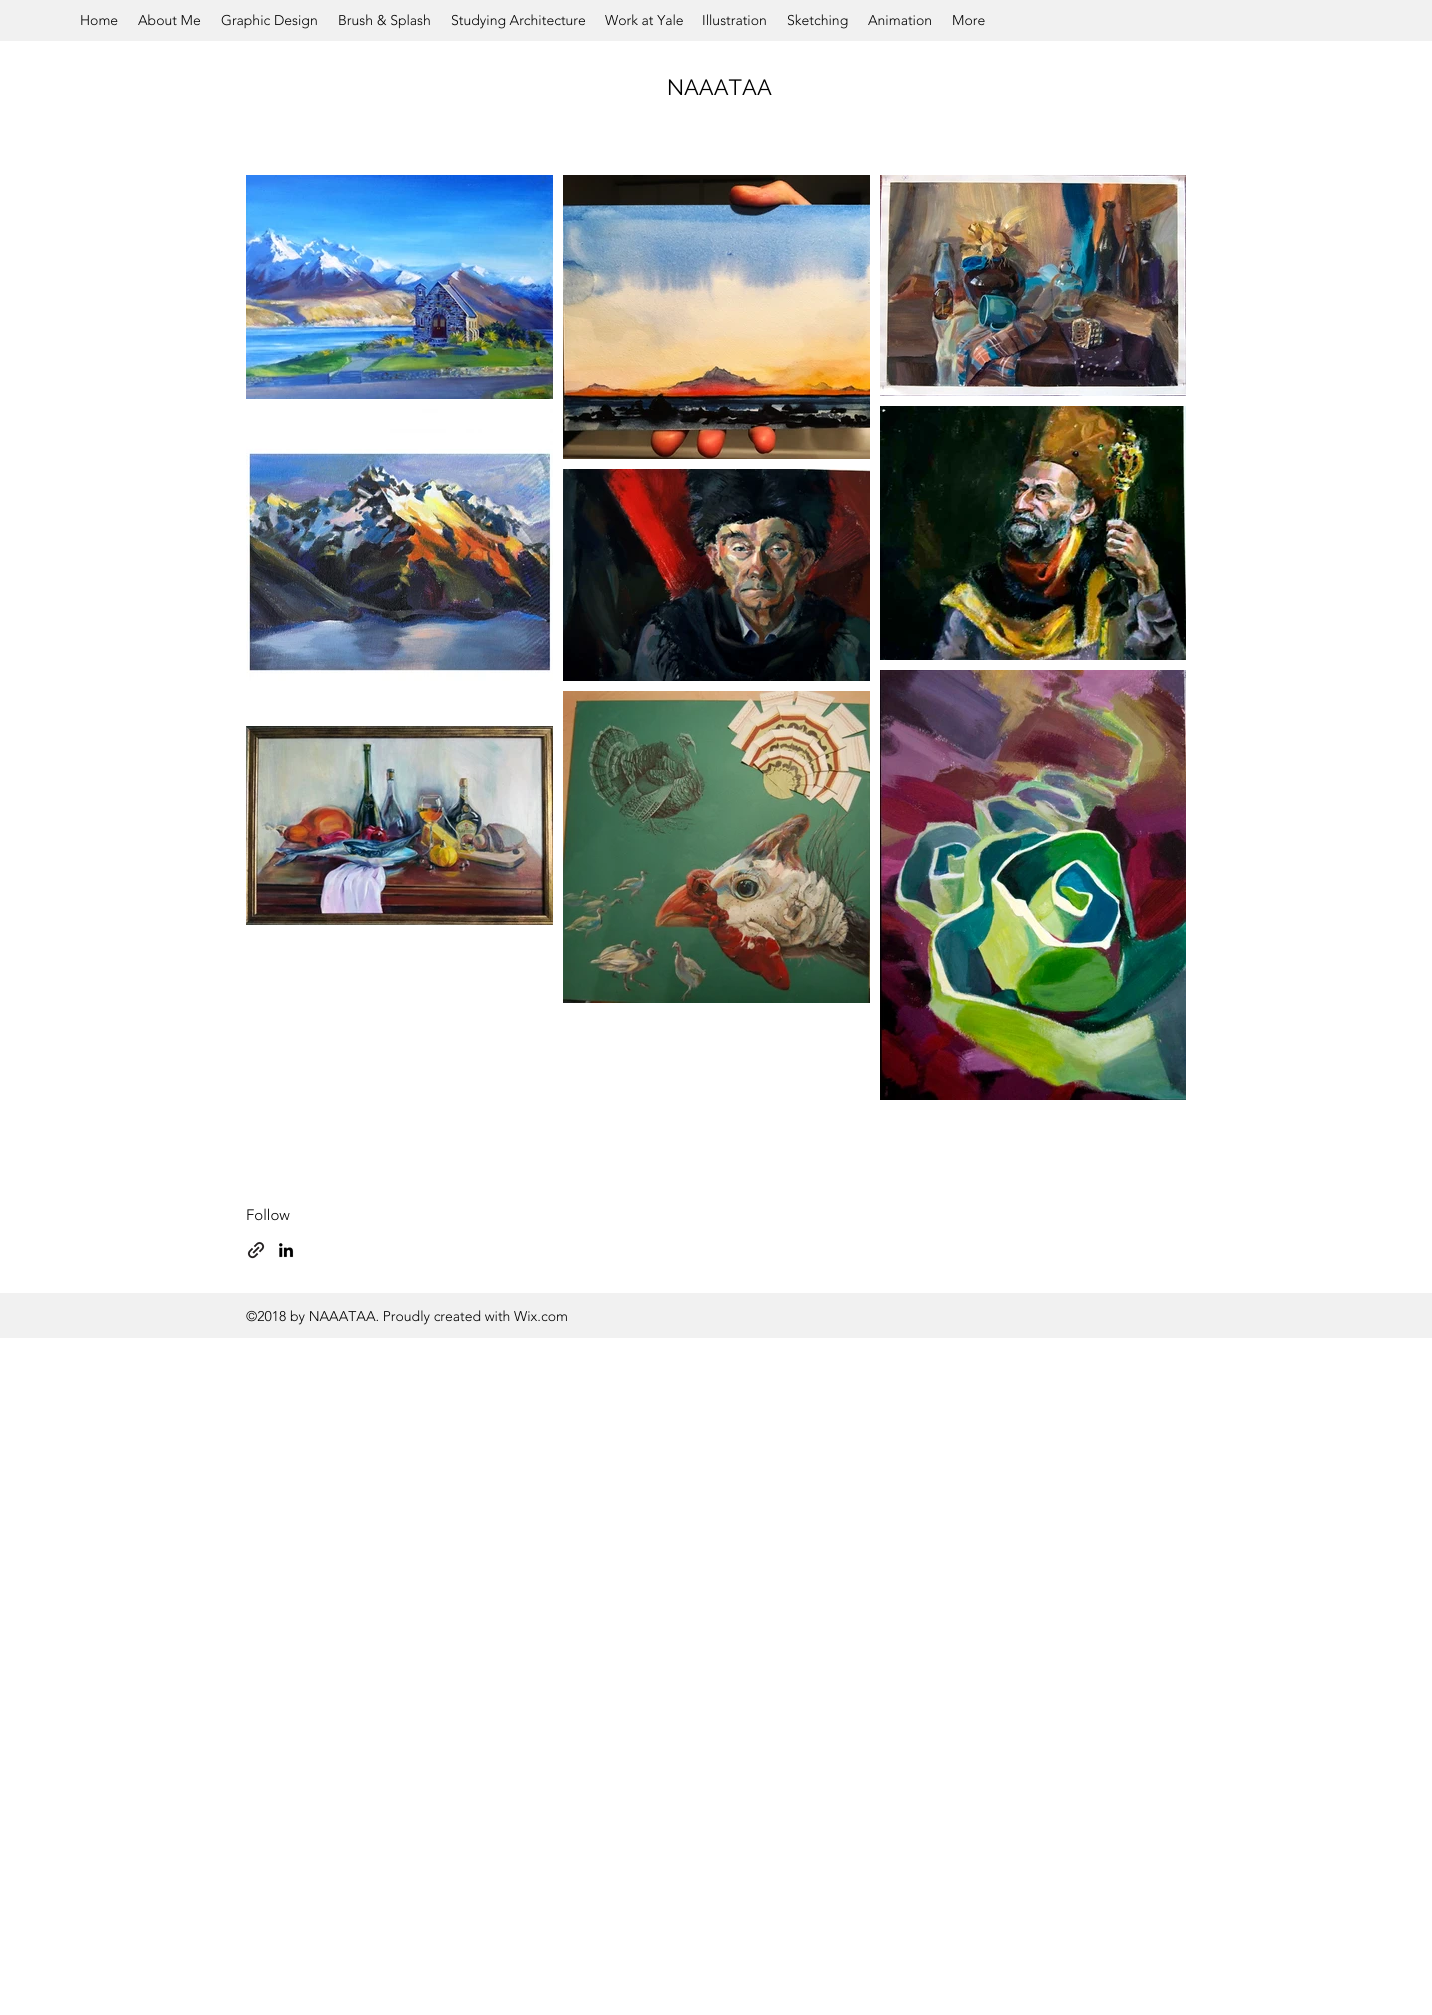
#include <cairo/cairo.h>
#include <math.h>
#include <stddef.h>


static void draw_image(cairo_t *cr, const char *path, double x, double y, double w, double h) {
  cairo_surface_t *image = cairo_image_surface_create_from_png(path);
  cairo_save(cr);
  cairo_set_source_surface(cr, image, x, y);
  cairo_rectangle(cr, x, y, w, h);
  cairo_fill(cr);
  cairo_restore(cr);
  cairo_surface_destroy(image);
}

static void draw(cairo_t *cr) {
  cairo_set_source_rgb(cr, 1, 1, 1);
  cairo_paint(cr);
  cairo_set_source_rgb(cr, 241 / 255.0, 241 / 255.0, 241 / 255.0);
  cairo_rectangle(cr, 0, 0, 1432, 41);
  cairo_fill(cr);
  draw_image(cr, "images/1.png", 246, 175, 307, 224);
  draw_image(cr, "images/2.png", 563, 175, 307, 284);
  draw_image(cr, "images/3.png", 880, 175, 306, 221);
  draw_image(cr, "images/4.png", 246, 409, 307, 307);
  draw_image(cr, "images/5.png", 563, 469, 307, 212);
  draw_image(cr, "images/6.png", 880, 406, 306, 254);
  draw_image(cr, "images/7.png", 246, 726, 307, 199);
  draw_image(cr, "images/8.png", 563, 691, 307, 312);
  draw_image(cr, "images/9.png", 880, 670, 306, 430);
  draw_image(cr, "images/10.png", 247, 1241, 18, 18);
  draw_image(cr, "images/11.png", 279, 1243, 15, 15);
  cairo_rectangle(cr, 0, 1293, 1432, 45);
  cairo_fill(cr);
  cairo_select_font_face(cr, "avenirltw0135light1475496 Light", CAIRO_FONT_SLANT_NORMAL, CAIRO_FONT_WEIGHT_NORMAL);
  cairo_set_font_size(cr, 14);
  cairo_set_source_rgb(cr, 0, 0, 0);
  cairo_move_to(cr, 80, 25);
  cairo_show_text(cr, "Home");
  cairo_move_to(cr, 138, 25);
  cairo_show_text(cr, "About Me");
  cairo_move_to(cr, 221, 25);
  cairo_show_text(cr, "Graphic Design");
  cairo_move_to(cr, 338, 25);
  cairo_show_text(cr, "Brush & Splash");
  cairo_move_to(cr, 451, 25);
  cairo_show_text(cr, "Studying Architecture");
  cairo_move_to(cr, 605, 25);
  cairo_show_text(cr, "Work at Yale");
  cairo_move_to(cr, 702, 25);
  cairo_show_text(cr, "Illustration");
  cairo_move_to(cr, 787, 25);
  cairo_show_text(cr, "Sketching");
  cairo_move_to(cr, 868, 25);
  cairo_show_text(cr, "Animation");
  cairo_move_to(cr, 952, 25);
  cairo_show_text(cr, "More");
  cairo_select_font_face(cr, "Raleway", CAIRO_FONT_SLANT_NORMAL, CAIRO_FONT_WEIGHT_NORMAL);
  cairo_set_font_size(cr, 22);
  cairo_move_to(cr, 667, 95);
  cairo_show_text(cr, "NAAATAA");
  cairo_select_font_face(cr, "avenirltw0135light1475496 Light", CAIRO_FONT_SLANT_NORMAL, CAIRO_FONT_WEIGHT_NORMAL);
  cairo_set_font_size(cr, 15);
  cairo_move_to(cr, 246, 1220);
  cairo_show_text(cr, "Follow");
  cairo_set_font_size(cr, 14);
  cairo_move_to(cr, 246, 1321);
  cairo_show_text(cr, "©2018 by NAAATAA. Proudly created with Wix.com");
}

int main(void) {
  cairo_surface_t *surface = cairo_image_surface_create(CAIRO_FORMAT_RGB24, 1432, 2015);
  cairo_t *cr = cairo_create(surface);
  cairo_font_options_t *options = cairo_font_options_create();
  cairo_font_options_set_hint_metrics(options, CAIRO_HINT_METRICS_OFF);
  cairo_font_options_set_hint_style(options, CAIRO_HINT_STYLE_NONE);
  cairo_set_font_options(cr, options);
  cairo_set_miter_limit(cr, 4);
  draw(cr);
  cairo_surface_write_to_png(surface, "out.png");
  cairo_font_options_destroy(options);
  cairo_destroy(cr);
  cairo_surface_destroy(surface);
  return 0;
}
